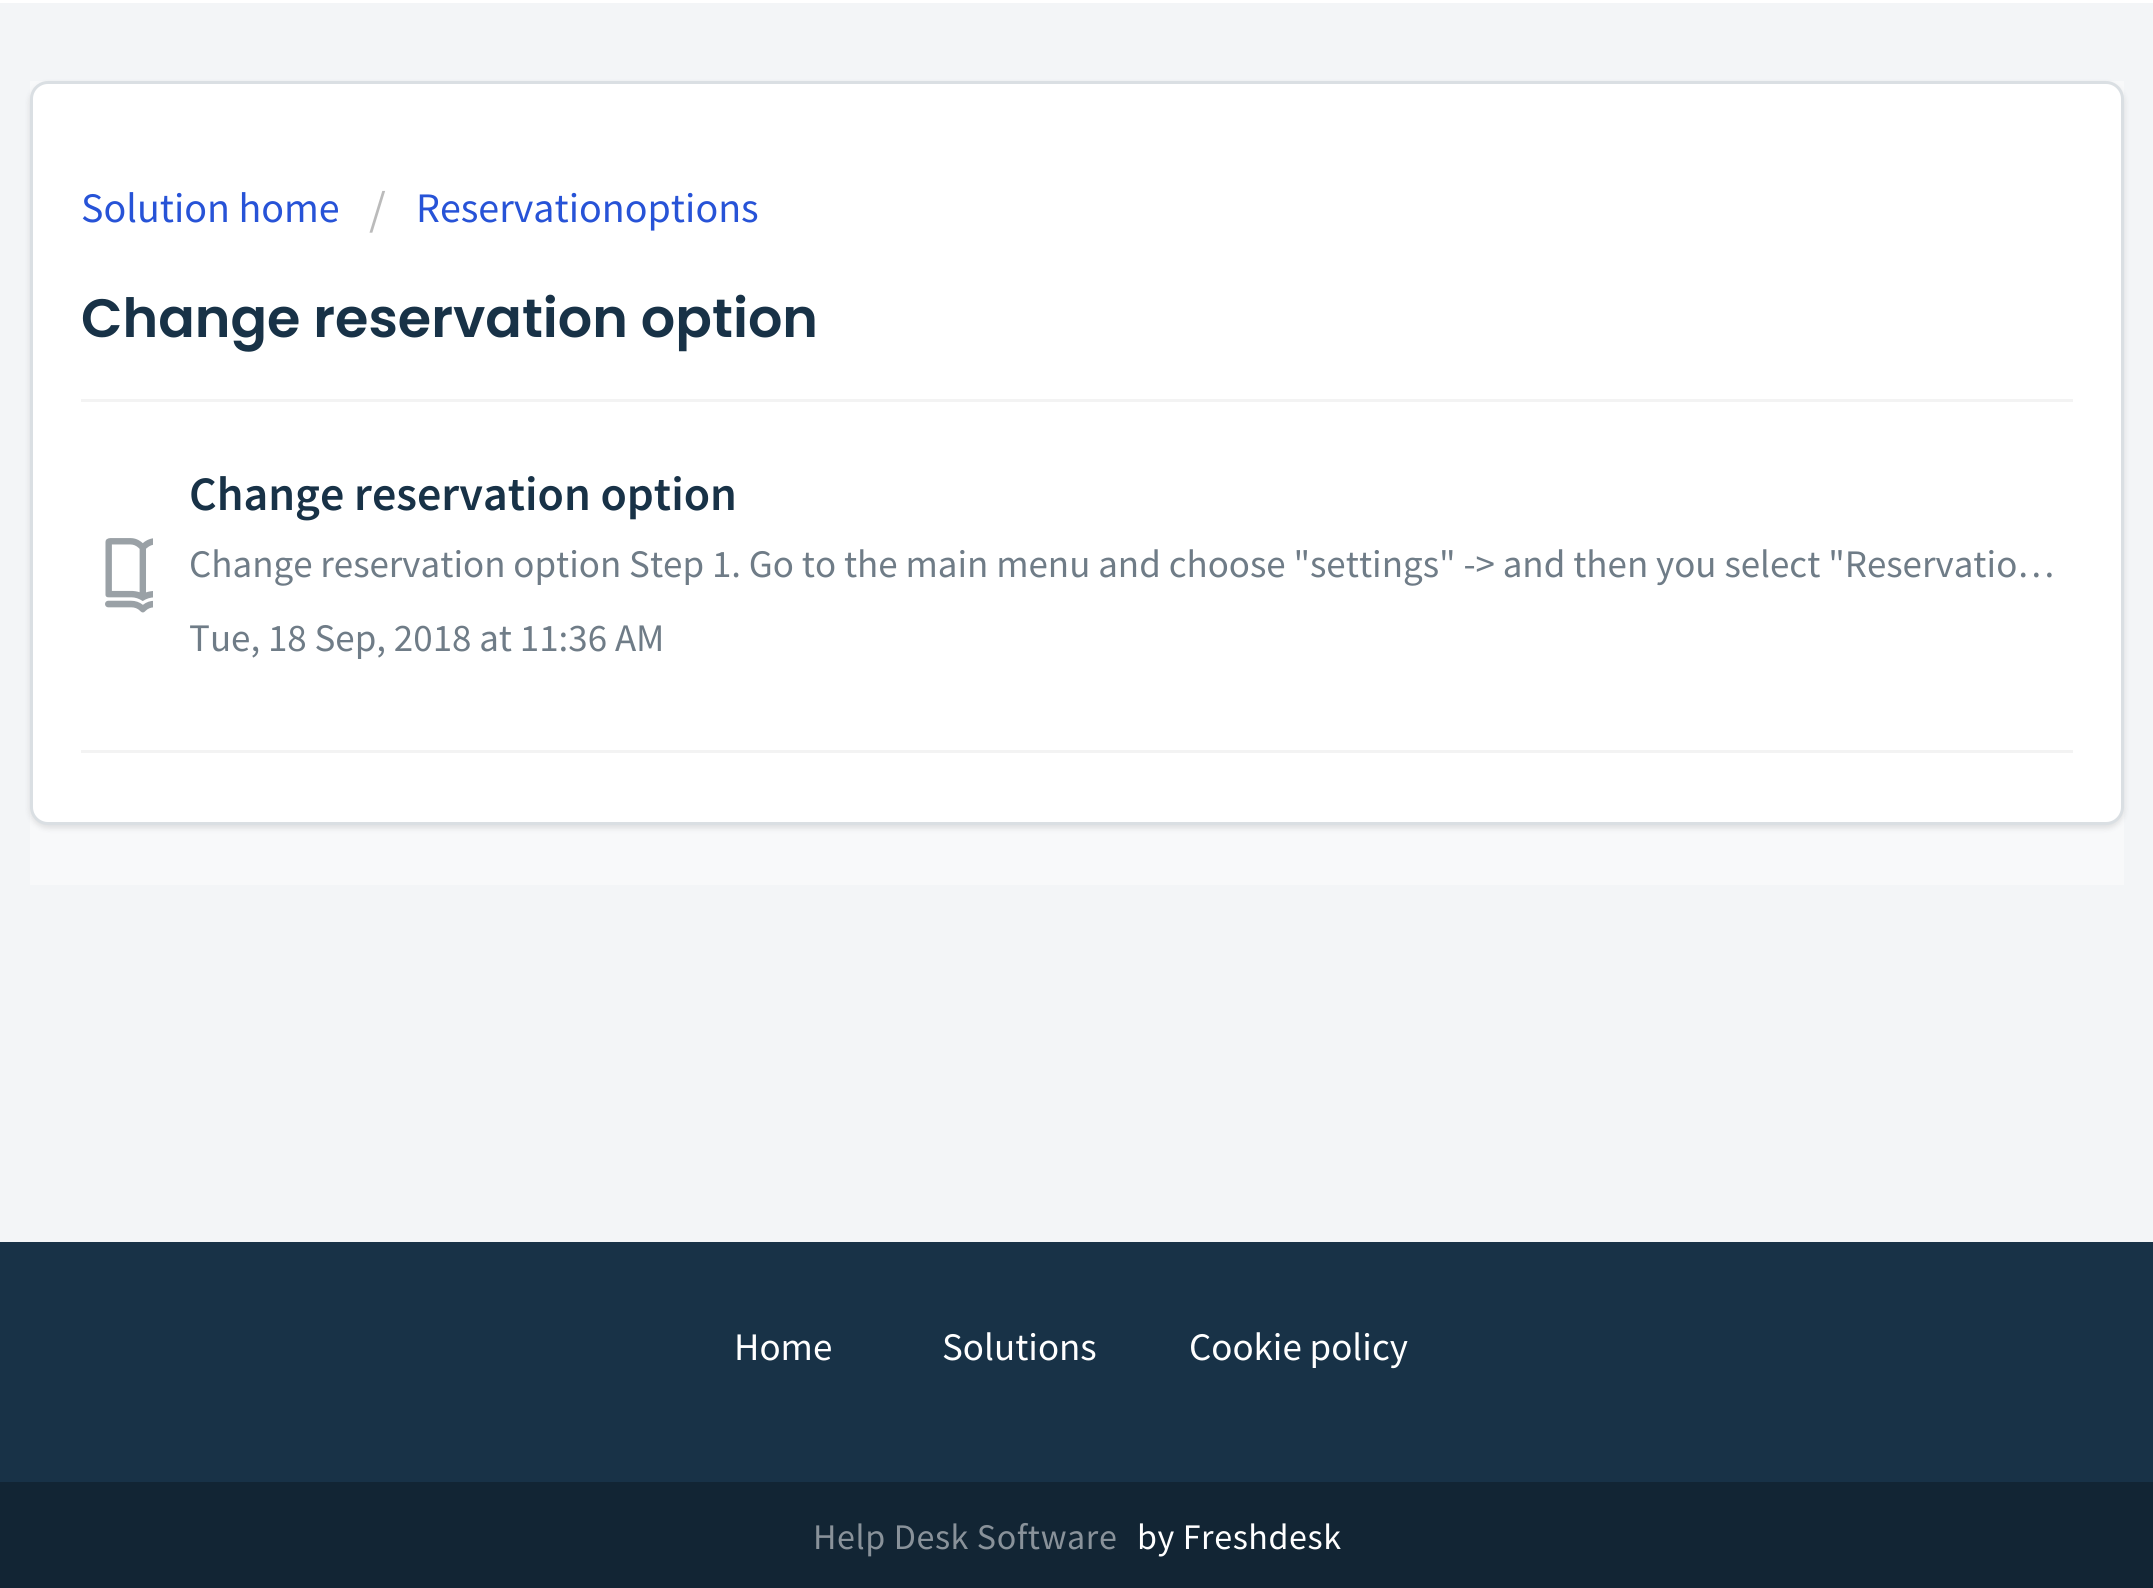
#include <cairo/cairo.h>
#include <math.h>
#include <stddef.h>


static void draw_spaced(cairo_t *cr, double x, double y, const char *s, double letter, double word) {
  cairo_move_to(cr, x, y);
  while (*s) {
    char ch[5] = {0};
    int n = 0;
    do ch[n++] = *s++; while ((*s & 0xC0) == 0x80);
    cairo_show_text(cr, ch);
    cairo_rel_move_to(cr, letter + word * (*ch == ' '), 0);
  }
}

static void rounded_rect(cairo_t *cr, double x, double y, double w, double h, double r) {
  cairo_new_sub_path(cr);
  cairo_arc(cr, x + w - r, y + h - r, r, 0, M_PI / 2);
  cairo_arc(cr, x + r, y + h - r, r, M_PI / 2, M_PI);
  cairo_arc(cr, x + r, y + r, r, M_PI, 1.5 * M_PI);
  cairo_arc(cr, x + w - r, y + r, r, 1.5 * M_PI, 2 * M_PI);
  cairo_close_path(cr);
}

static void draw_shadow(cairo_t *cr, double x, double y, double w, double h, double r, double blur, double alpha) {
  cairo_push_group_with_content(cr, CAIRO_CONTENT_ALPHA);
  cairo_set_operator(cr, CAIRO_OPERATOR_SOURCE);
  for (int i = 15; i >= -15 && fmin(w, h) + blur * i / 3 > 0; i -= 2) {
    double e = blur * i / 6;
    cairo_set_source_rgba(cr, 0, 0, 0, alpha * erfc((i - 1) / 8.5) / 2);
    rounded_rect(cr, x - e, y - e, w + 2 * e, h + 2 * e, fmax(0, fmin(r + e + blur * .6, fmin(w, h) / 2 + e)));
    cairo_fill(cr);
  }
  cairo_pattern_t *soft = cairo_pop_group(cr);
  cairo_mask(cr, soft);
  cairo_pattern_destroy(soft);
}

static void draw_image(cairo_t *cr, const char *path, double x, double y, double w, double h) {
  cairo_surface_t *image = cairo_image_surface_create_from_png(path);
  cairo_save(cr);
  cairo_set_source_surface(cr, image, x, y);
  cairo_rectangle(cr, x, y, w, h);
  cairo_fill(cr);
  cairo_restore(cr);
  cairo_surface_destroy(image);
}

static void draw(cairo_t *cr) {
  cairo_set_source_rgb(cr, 243 / 255.0, 245 / 255.0, 247 / 255.0);
  cairo_paint(cr);
  cairo_set_source_rgb(cr, 1, 1, 1);
  cairo_rectangle(cr, 0, 0, 2153, 3);
  cairo_fill(cr);
  cairo_set_source_rgb(cr, 248 / 255.0, 249 / 255.0, 250 / 255.0);
  cairo_rectangle(cr, 30, 81, 2094, 804);
  cairo_fill(cr);
  cairo_set_source_rgb(cr, 63 / 255.0, 63 / 255.0, 68 / 255.0);
  draw_shadow(cr, 30, 84, 2094, 744, 18, 3, 0.15);
  cairo_set_source_rgb(cr, 1, 1, 1);
  rounded_rect(cr, 31.5, 82.5, 2091, 741, 16.5);
  cairo_fill_preserve(cr);
  cairo_set_source_rgb(cr, 218 / 255.0, 223 / 255.0, 227 / 255.0);
  cairo_set_line_width(cr, 3);
  cairo_stroke(cr);
  cairo_set_source_rgb(cr, 243 / 255.0, 243 / 255.0, 243 / 255.0);
  cairo_rectangle(cr, 81, 750, 1992, 3);
  cairo_fill(cr);
  cairo_rectangle(cr, 81, 399, 1992, 3);
  cairo_fill(cr);
  draw_image(cr, "images/1.png", 105, 538, 48, 75);
  cairo_set_source_rgb(cr, 24 / 255.0, 50 / 255.0, 71 / 255.0);
  cairo_rectangle(cr, 0, 1242, 2153, 240);
  cairo_fill(cr);
  cairo_set_source_rgb(cr, 18 / 255.0, 37 / 255.0, 52 / 255.0);
  cairo_rectangle(cr, 0, 1482, 2153, 106);
  cairo_fill(cr);
  cairo_select_font_face(cr, "Source Sans Pro", CAIRO_FONT_SLANT_NORMAL, CAIRO_FONT_WEIGHT_NORMAL);
  cairo_set_font_size(cr, 42);
  cairo_set_source_rgb(cr, 39 / 255.0, 83 / 255.0, 215 / 255.0);
  cairo_move_to(cr, 81, 222);
  cairo_show_text(cr, "Solution home");
  cairo_set_font_size(cr, 48);
  cairo_set_source_rgb(cr, 187 / 255.0, 187 / 255.0, 187 / 255.0);
  cairo_move_to(cr, 369, 225);
  cairo_show_text(cr, "/");
  cairo_set_font_size(cr, 42);
  cairo_set_source_rgb(cr, 39 / 255.0, 83 / 255.0, 215 / 255.0);
  cairo_move_to(cr, 416, 222);
  cairo_show_text(cr, "Reservationoptions");
  cairo_select_font_face(cr, "Poppins SemiBold", CAIRO_FONT_SLANT_NORMAL, CAIRO_FONT_WEIGHT_NORMAL);
  cairo_set_font_size(cr, 54);
  cairo_set_source_rgb(cr, 24 / 255.0, 50 / 255.0, 71 / 255.0);
  cairo_move_to(cr, 81, 337);
  cairo_show_text(cr, "Change reservation option");
  cairo_select_font_face(cr, "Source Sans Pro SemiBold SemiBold", CAIRO_FONT_SLANT_NORMAL, CAIRO_FONT_WEIGHT_NORMAL);
  cairo_set_font_size(cr, 48);
  cairo_move_to(cr, 189, 510);
  cairo_show_text(cr, "Change reservation option");
  cairo_select_font_face(cr, "Source Sans Pro", CAIRO_FONT_SLANT_NORMAL, CAIRO_FONT_WEIGHT_NORMAL);
  cairo_set_font_size(cr, 39);
  cairo_set_source_rgb(cr, 111 / 255.0, 124 / 255.0, 135 / 255.0);
  cairo_move_to(cr, 189, 577);
  cairo_show_text(cr, "Change reservation option Step 1. Go to the main menu and choose \"settings\" -> and then you select \"Reservatio…");
  cairo_move_to(cr, 189, 651);
  cairo_show_text(cr, "Tue, 18 Sep, 2018 at 11:36 AM");
  cairo_set_source_rgb(cr, 1, 1, 1);
  cairo_move_to(cr, 734, 1360);
  cairo_show_text(cr, "Home");
  cairo_move_to(cr, 942, 1360);
  cairo_show_text(cr, "Solutions");
  cairo_move_to(cr, 1189, 1360);
  cairo_show_text(cr, "Cookie policy");
  cairo_set_font_size(cr, 36);
  cairo_set_source_rgb(cr, 137 / 255.0, 146 / 255.0, 154 / 255.0);
  draw_spaced(cr, 813, 1549, "Help Desk Software", 0.6, 0);
  cairo_set_source_rgb(cr, 1, 1, 1);
  draw_spaced(cr, 1137, 1549, "by Freshdesk", 0.6, 0);
}

int main(void) {
  cairo_surface_t *surface = cairo_image_surface_create(CAIRO_FORMAT_RGB24, 2153, 1588);
  cairo_t *cr = cairo_create(surface);
  cairo_font_options_t *options = cairo_font_options_create();
  cairo_font_options_set_hint_metrics(options, CAIRO_HINT_METRICS_OFF);
  cairo_font_options_set_hint_style(options, CAIRO_HINT_STYLE_NONE);
  cairo_set_font_options(cr, options);
  cairo_set_miter_limit(cr, 4);
  draw(cr);
  cairo_surface_write_to_png(surface, "out.png");
  cairo_font_options_destroy(options);
  cairo_destroy(cr);
  cairo_surface_destroy(surface);
  return 0;
}
